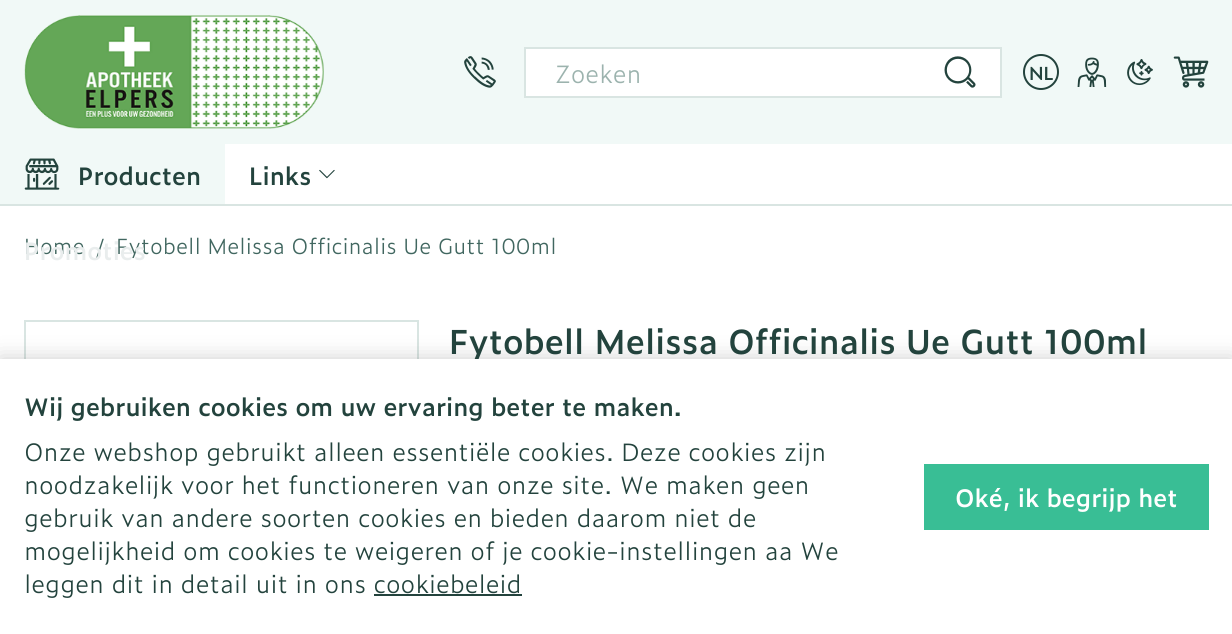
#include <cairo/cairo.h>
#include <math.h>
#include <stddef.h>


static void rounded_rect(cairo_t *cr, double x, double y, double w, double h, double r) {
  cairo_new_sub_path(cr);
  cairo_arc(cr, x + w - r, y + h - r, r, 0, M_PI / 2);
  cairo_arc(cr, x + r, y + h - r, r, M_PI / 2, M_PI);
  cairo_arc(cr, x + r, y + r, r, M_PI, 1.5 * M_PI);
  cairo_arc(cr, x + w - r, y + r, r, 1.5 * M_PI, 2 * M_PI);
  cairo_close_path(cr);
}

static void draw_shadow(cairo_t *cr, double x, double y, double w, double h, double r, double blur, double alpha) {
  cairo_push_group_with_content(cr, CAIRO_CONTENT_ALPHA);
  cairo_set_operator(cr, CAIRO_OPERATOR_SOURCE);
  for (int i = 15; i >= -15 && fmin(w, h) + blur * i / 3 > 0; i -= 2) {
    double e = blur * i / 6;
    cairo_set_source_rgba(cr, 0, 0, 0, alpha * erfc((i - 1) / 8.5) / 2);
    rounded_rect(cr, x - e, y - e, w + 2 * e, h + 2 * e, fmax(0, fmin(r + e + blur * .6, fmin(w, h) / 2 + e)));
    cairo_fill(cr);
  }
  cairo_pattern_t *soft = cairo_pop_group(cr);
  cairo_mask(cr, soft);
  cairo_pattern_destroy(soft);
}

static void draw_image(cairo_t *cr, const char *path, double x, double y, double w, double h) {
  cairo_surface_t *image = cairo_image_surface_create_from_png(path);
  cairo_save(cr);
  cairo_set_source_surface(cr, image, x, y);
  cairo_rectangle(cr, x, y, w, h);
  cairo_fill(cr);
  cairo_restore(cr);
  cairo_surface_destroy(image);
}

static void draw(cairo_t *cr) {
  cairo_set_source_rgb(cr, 1, 1, 1);
  cairo_paint(cr);
  cairo_set_source_rgb(cr, 217 / 255.0, 229 / 255.0, 226 / 255.0);
  cairo_rectangle(cr, 0, 204, 1232, 2);
  cairo_fill(cr);
  cairo_set_source_rgb(cr, 241 / 255.0, 249 / 255.0, 247 / 255.0);
  cairo_rectangle(cr, 0, 0, 1232, 144);
  cairo_fill(cr);
  draw_image(cr, "images/1.png", 24, 15, 300, 114);
  draw_image(cr, "images/2.png", 464, 56, 32, 32);
  cairo_set_source_rgb(cr, 1, 1, 1);
  cairo_rectangle(cr, 525, 48, 476, 49);
  cairo_fill_preserve(cr);
  cairo_set_source_rgb(cr, 217 / 255.0, 229 / 255.0, 226 / 255.0);
  cairo_stroke(cr);
  draw_image(cr, "images/3.png", 944, 56, 32, 32);
  cairo_arc(cr, 1041, 72, 17, 0, 2 * M_PI);
  cairo_set_source_rgb(cr, 35 / 255.0, 67 / 255.0, 61 / 255.0);
  cairo_stroke(cr);
  draw_image(cr, "images/4.png", 1077, 57, 30, 30);
  draw_image(cr, "images/5.png", 1127, 59, 26, 27);
  draw_image(cr, "images/6.png", 1173, 56, 36, 32);
  cairo_set_source_rgb(cr, 241 / 255.0, 249 / 255.0, 247 / 255.0);
  cairo_rectangle(cr, 0, 144, 225, 60);
  cairo_fill(cr);
  draw_image(cr, "images/7.png", 24, 158, 36, 32);
  draw_image(cr, "images/8.png", 319, 169, 16, 10);
  cairo_rectangle(cr, 25, 321, 393, 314);
  cairo_set_source_rgb(cr, 217 / 255.0, 229 / 255.0, 226 / 255.0);
  cairo_stroke(cr);
  cairo_set_source_rgb(cr, 0, 0, 0);
  draw_shadow(cr, 0, 359, 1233, 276, 0, 11, 0.2);
  cairo_select_font_face(cr, "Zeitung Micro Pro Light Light", CAIRO_FONT_SLANT_NORMAL, CAIRO_FONT_WEIGHT_NORMAL);
  cairo_set_font_size(cr, 24);
  cairo_set_source_rgb(cr, 156 / 255.0, 179 / 255.0, 174 / 255.0);
  cairo_move_to(cr, 555, 83);
  cairo_show_text(cr, "Zoeken");
  cairo_select_font_face(cr, "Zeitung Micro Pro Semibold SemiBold", CAIRO_FONT_SLANT_NORMAL, CAIRO_FONT_WEIGHT_NORMAL);
  cairo_set_font_size(cr, 18);
  cairo_set_source_rgb(cr, 35 / 255.0, 67 / 255.0, 61 / 255.0);
  cairo_move_to(cr, 1029, 80);
  cairo_show_text(cr, "NL");
  cairo_set_font_size(cr, 24);
  cairo_move_to(cr, 78, 185);
  cairo_show_text(cr, "Producten");
  cairo_move_to(cr, 249, 185);
  cairo_show_text(cr, "Links");
  cairo_select_font_face(cr, "Zeitung Micro Pro Light Light", CAIRO_FONT_SLANT_NORMAL, CAIRO_FONT_WEIGHT_NORMAL);
  cairo_set_font_size(cr, 21);
  cairo_set_source_rgb(cr, 65 / 255.0, 103 / 255.0, 96 / 255.0);
  cairo_move_to(cr, 24, 254);
  cairo_show_text(cr, "Home");
  cairo_move_to(cr, 96, 254);
  cairo_show_text(cr, "/");
  cairo_move_to(cr, 116, 254);
  cairo_show_text(cr, "Fytobell Melissa Officinalis Ue Gutt 100ml");
  cairo_select_font_face(cr, "Zeitung Micro Pro Semibold SemiBold", CAIRO_FONT_SLANT_NORMAL, CAIRO_FONT_WEIGHT_NORMAL);
  cairo_set_font_size(cr, 24);
  cairo_set_source_rgb(cr, 233 / 255.0, 237 / 255.0, 237 / 255.0);
  cairo_move_to(cr, 24, 260);
  cairo_show_text(cr, "Promoties");
  cairo_set_font_size(cr, 33);
  cairo_set_source_rgb(cr, 35 / 255.0, 67 / 255.0, 61 / 255.0);
  cairo_move_to(cr, 449, 354);
  cairo_show_text(cr, "Fytobell Melissa Officinalis Ue Gutt 100ml");
  cairo_set_source_rgb(cr, 1, 1, 1);
  cairo_rectangle(cr, 0, 359, 1232, 275);
  cairo_fill(cr);
  cairo_set_font_size(cr, 24);
  cairo_set_source_rgb(cr, 35 / 255.0, 67 / 255.0, 61 / 255.0);
  cairo_move_to(cr, 24, 416);
  cairo_show_text(cr, "Wij gebruiken cookies om uw ervaring beter te maken.");
  cairo_select_font_face(cr, "Zeitung Micro Pro Light Light", CAIRO_FONT_SLANT_NORMAL, CAIRO_FONT_WEIGHT_NORMAL);
  cairo_move_to(cr, 24, 461);
  cairo_show_text(cr, "Onze webshop gebruikt alleen essentiële cookies. Deze cookies zijn");
  cairo_move_to(cr, 24, 494);
  cairo_show_text(cr, "noodzakelijk voor het functioneren van onze site. We maken geen");
  cairo_move_to(cr, 24, 527);
  cairo_show_text(cr, "gebruik van andere soorten cookies en bieden daarom niet de");
  cairo_move_to(cr, 24, 560);
  cairo_show_text(cr, "mogelijkheid om cookies te weigeren of je cookie-instellingen aa We");
  cairo_move_to(cr, 24, 593);
  cairo_show_text(cr, "leggen dit in detail uit in ons cookiebeleid");
  cairo_rectangle(cr, 374, 594, 148, 2);
  cairo_fill(cr);
  cairo_set_source_rgb(cr, 57 / 255.0, 190 / 255.0, 149 / 255.0);
  cairo_rectangle(cr, 924, 464, 285, 66);
  cairo_fill(cr);
  cairo_select_font_face(cr, "Zeitung Micro Pro Semibold SemiBold", CAIRO_FONT_SLANT_NORMAL, CAIRO_FONT_WEIGHT_NORMAL);
  cairo_set_source_rgb(cr, 1, 1, 1);
  cairo_move_to(cr, 955, 507);
  cairo_show_text(cr, "Oké, ik begrijp het");
}

int main(void) {
  cairo_surface_t *surface = cairo_image_surface_create(CAIRO_FORMAT_RGB24, 1232, 634);
  cairo_t *cr = cairo_create(surface);
  cairo_font_options_t *options = cairo_font_options_create();
  cairo_font_options_set_hint_metrics(options, CAIRO_HINT_METRICS_OFF);
  cairo_font_options_set_hint_style(options, CAIRO_HINT_STYLE_NONE);
  cairo_set_font_options(cr, options);
  cairo_set_miter_limit(cr, 4);
  draw(cr);
  cairo_surface_write_to_png(surface, "out.png");
  cairo_font_options_destroy(options);
  cairo_destroy(cr);
  cairo_surface_destroy(surface);
  return 0;
}
